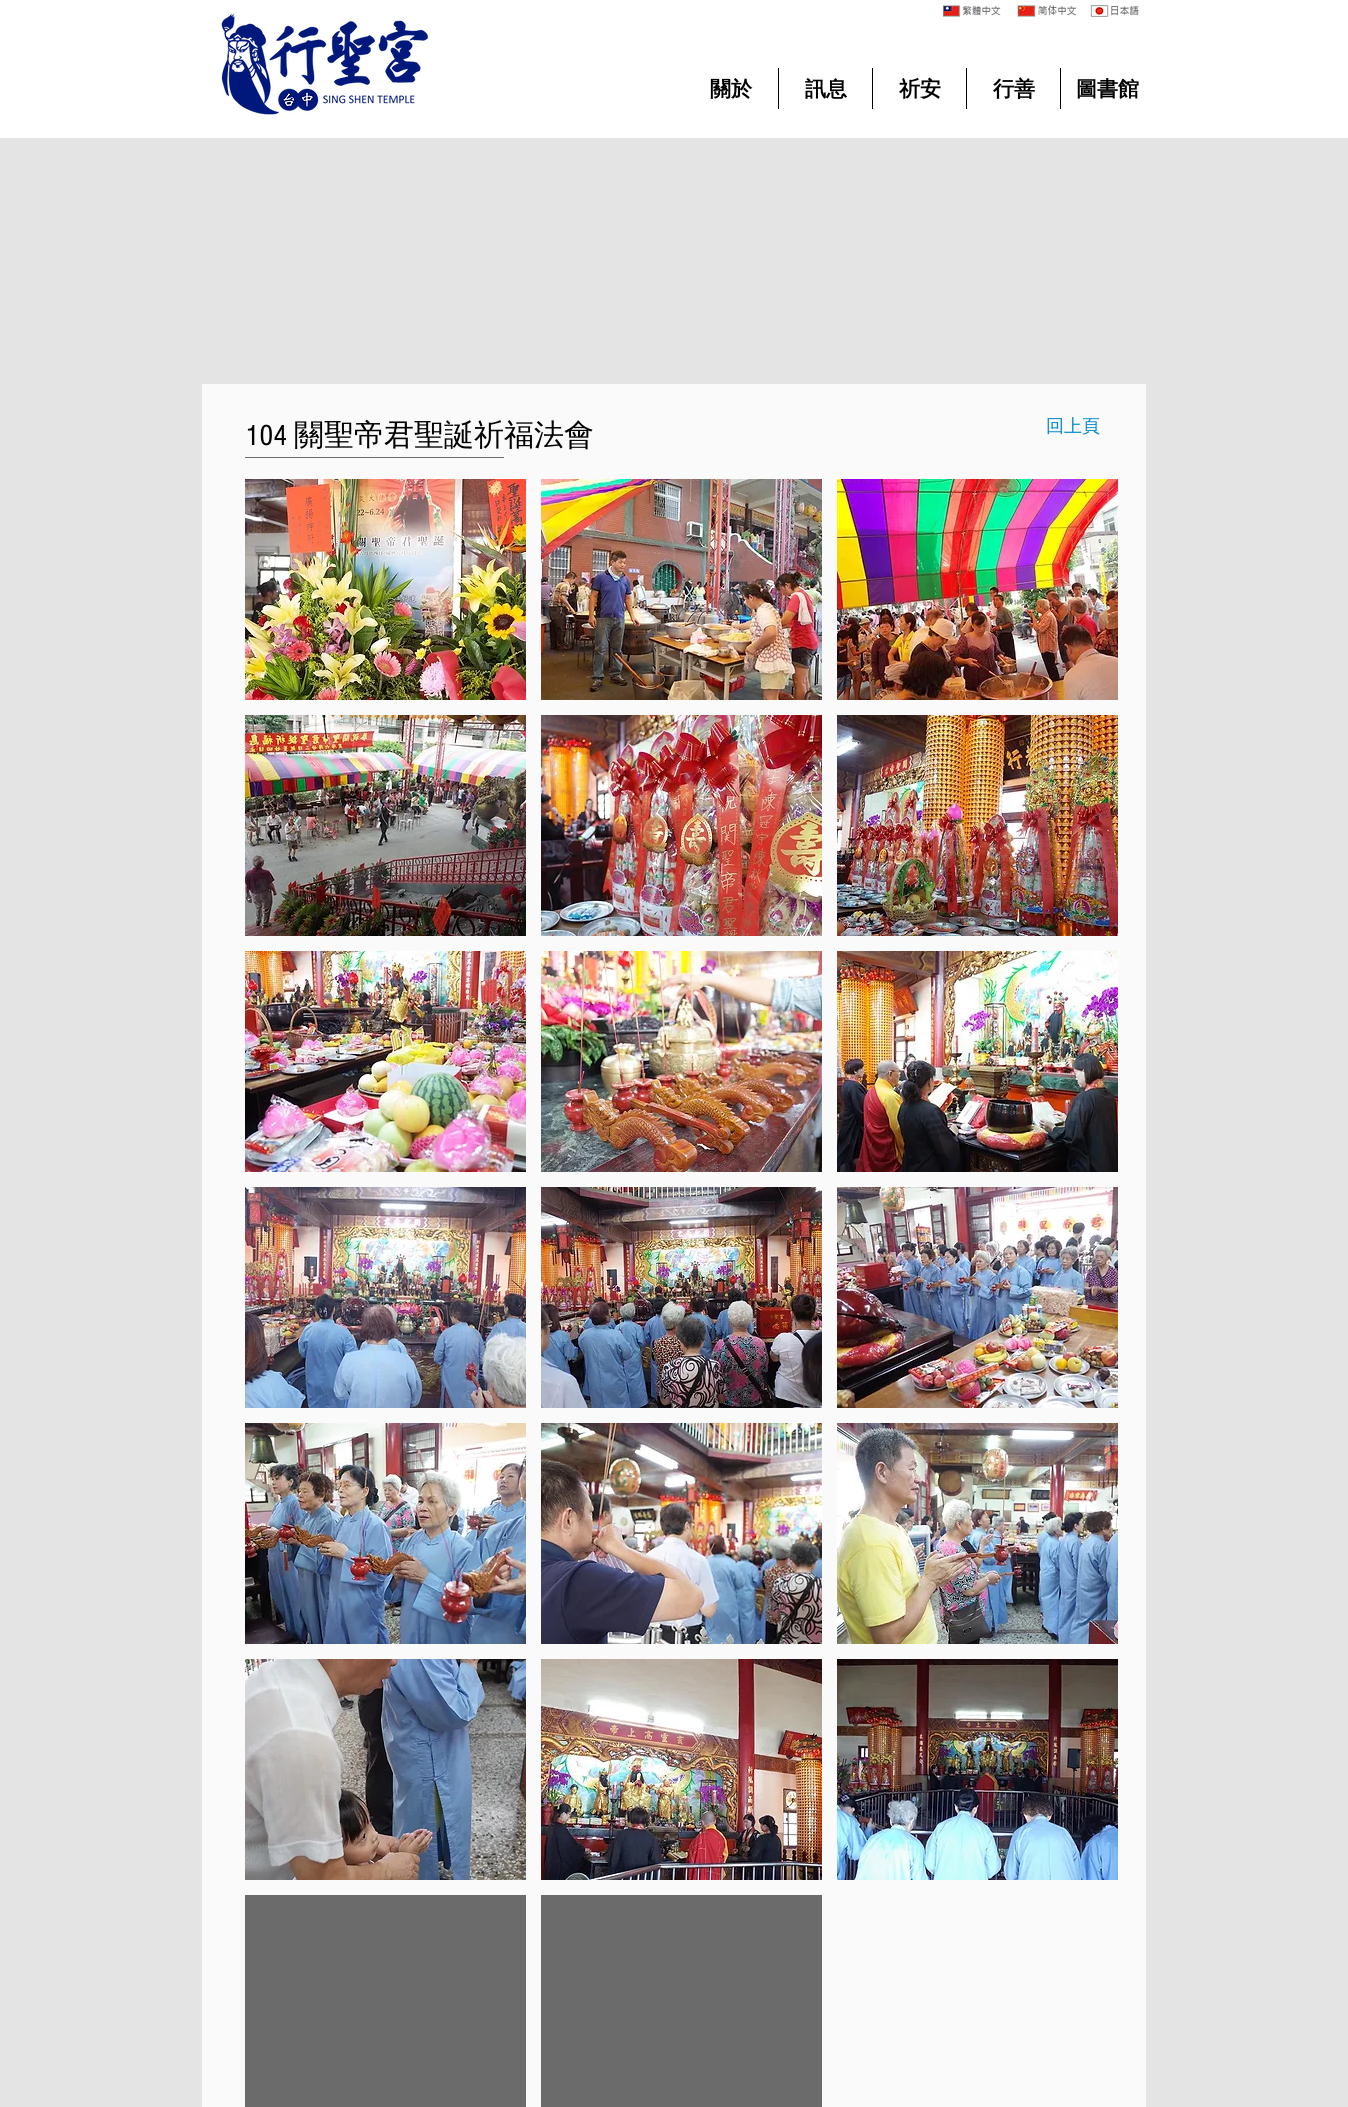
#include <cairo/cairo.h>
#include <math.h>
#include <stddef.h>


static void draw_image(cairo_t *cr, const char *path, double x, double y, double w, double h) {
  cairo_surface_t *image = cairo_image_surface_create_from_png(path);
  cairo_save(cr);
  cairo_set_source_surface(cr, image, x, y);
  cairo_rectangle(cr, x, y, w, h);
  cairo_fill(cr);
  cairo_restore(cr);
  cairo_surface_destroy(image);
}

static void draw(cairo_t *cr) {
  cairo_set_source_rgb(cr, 228 / 255.0, 228 / 255.0, 228 / 255.0);
  cairo_paint(cr);
  cairo_set_source_rgb(cr, 1, 1, 1);
  cairo_rectangle(cr, 0, 0, 1348, 138);
  cairo_fill(cr);
  draw_image(cr, "images/1.png", 942, 5, 59, 12);
  draw_image(cr, "images/2.png", 1017, 5, 60, 12);
  draw_image(cr, "images/3.png", 1090, 5, 49, 12);
  draw_image(cr, "images/4.png", 221, 14, 208, 101);
  cairo_set_source_rgb(cr, 0, 0, 0);
  cairo_rectangle(cr, 778, 68, 1, 41);
  cairo_fill(cr);
  cairo_rectangle(cr, 872, 68, 1, 41);
  cairo_fill(cr);
  cairo_rectangle(cr, 966, 68, 1, 41);
  cairo_fill(cr);
  cairo_rectangle(cr, 1060, 68, 1, 41);
  cairo_fill(cr);
  cairo_set_source_rgb(cr, 250 / 255.0, 250 / 255.0, 250 / 255.0);
  cairo_rectangle(cr, 202, 384, 944, 1723);
  cairo_fill(cr);
  cairo_set_source_rgb(cr, 107 / 255.0, 107 / 255.0, 107 / 255.0);
  cairo_rectangle(cr, 245, 457, 259, 1);
  cairo_fill(cr);
  draw_image(cr, "images/5.png", 245, 479, 281, 221);
  draw_image(cr, "images/6.png", 541, 479, 281, 221);
  draw_image(cr, "images/7.png", 837, 479, 281, 221);
  draw_image(cr, "images/8.png", 245, 715, 281, 221);
  draw_image(cr, "images/9.png", 541, 715, 281, 221);
  draw_image(cr, "images/10.png", 837, 715, 281, 221);
  draw_image(cr, "images/11.png", 245, 951, 281, 221);
  draw_image(cr, "images/12.png", 541, 951, 281, 221);
  draw_image(cr, "images/13.png", 837, 951, 281, 221);
  draw_image(cr, "images/14.png", 245, 1187, 281, 221);
  draw_image(cr, "images/15.png", 541, 1187, 281, 221);
  draw_image(cr, "images/16.png", 837, 1187, 281, 221);
  draw_image(cr, "images/17.png", 245, 1423, 281, 221);
  draw_image(cr, "images/18.png", 541, 1423, 281, 221);
  draw_image(cr, "images/19.png", 837, 1423, 281, 221);
  draw_image(cr, "images/20.png", 245, 1659, 281, 221);
  draw_image(cr, "images/21.png", 541, 1659, 281, 221);
  draw_image(cr, "images/22.png", 837, 1659, 281, 221);
  cairo_rectangle(cr, 245, 1895, 281, 212);
  cairo_fill(cr);
  cairo_rectangle(cr, 541, 1895, 281, 212);
  cairo_fill(cr);
  cairo_select_font_face(cr, "WenQuanYi Zen Hei", CAIRO_FONT_SLANT_NORMAL, CAIRO_FONT_WEIGHT_BOLD);
  cairo_set_font_size(cr, 21);
  cairo_set_source_rgb(cr, 0, 0, 0);
  cairo_move_to(cr, 710, 96);
  cairo_show_text(cr, "關於");
  cairo_move_to(cr, 805, 96);
  cairo_show_text(cr, "訊息");
  cairo_move_to(cr, 899, 96);
  cairo_show_text(cr, "祈安");
  cairo_move_to(cr, 993, 96);
  cairo_show_text(cr, "行善");
  cairo_move_to(cr, 1076, 96);
  cairo_show_text(cr, "圖書館");
  cairo_select_font_face(cr, "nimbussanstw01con", CAIRO_FONT_SLANT_NORMAL, CAIRO_FONT_WEIGHT_NORMAL);
  cairo_set_font_size(cr, 30);
  cairo_move_to(cr, 245, 445);
  cairo_show_text(cr, "104");
  cairo_select_font_face(cr, "WenQuanYi Zen Hei Medium", CAIRO_FONT_SLANT_NORMAL, CAIRO_FONT_WEIGHT_NORMAL);
  cairo_move_to(cr, 294, 445);
  cairo_show_text(cr, "關聖帝君聖誕祈福法會");
  cairo_set_font_size(cr, 18);
  cairo_set_source_rgb(cr, 0, 136 / 255.0, 203 / 255.0);
  cairo_move_to(cr, 1046, 432);
  cairo_show_text(cr, "回上頁");
}

int main(void) {
  cairo_surface_t *surface = cairo_image_surface_create(CAIRO_FORMAT_RGB24, 1348, 2107);
  cairo_t *cr = cairo_create(surface);
  cairo_font_options_t *options = cairo_font_options_create();
  cairo_font_options_set_hint_metrics(options, CAIRO_HINT_METRICS_OFF);
  cairo_font_options_set_hint_style(options, CAIRO_HINT_STYLE_NONE);
  cairo_set_font_options(cr, options);
  cairo_set_miter_limit(cr, 4);
  draw(cr);
  cairo_surface_write_to_png(surface, "out.png");
  cairo_font_options_destroy(options);
  cairo_destroy(cr);
  cairo_surface_destroy(surface);
  return 0;
}
